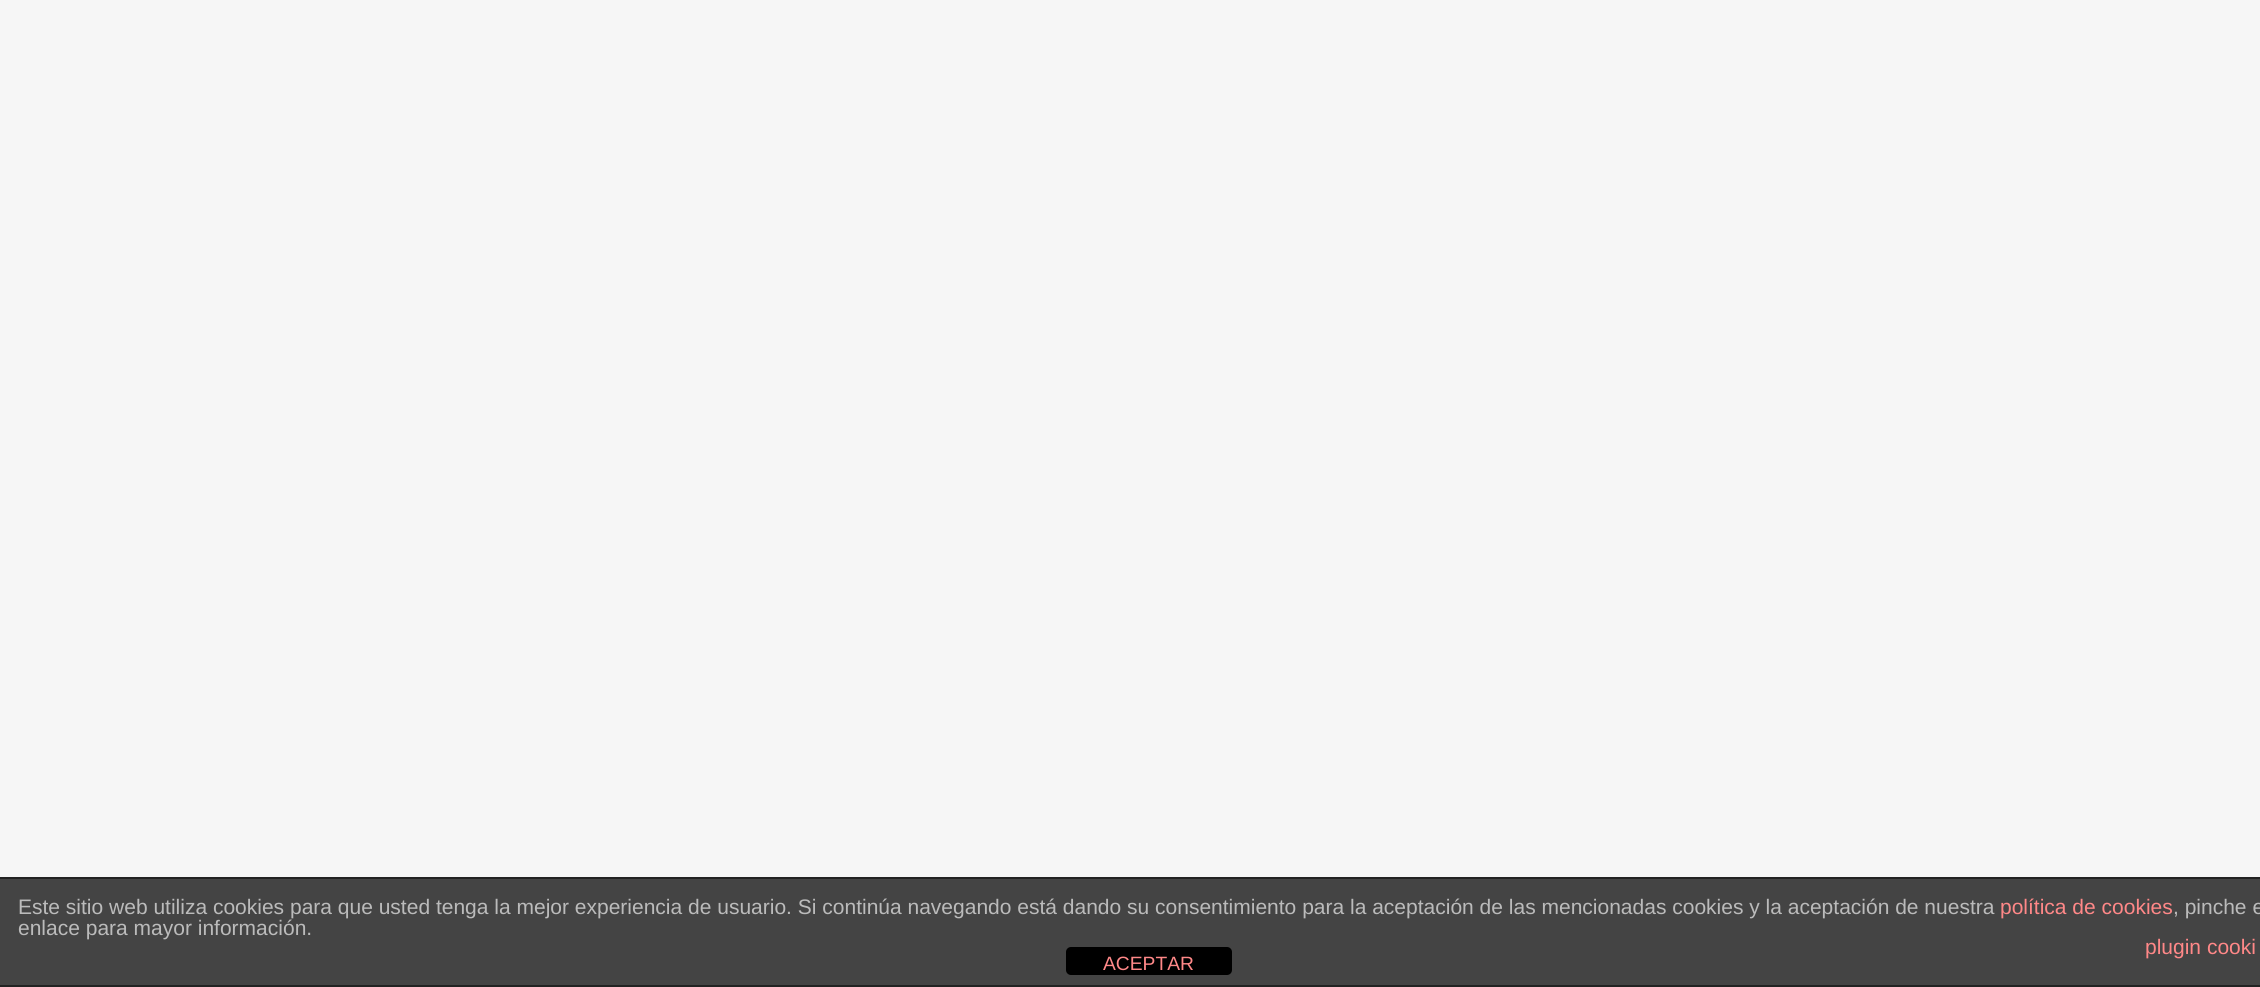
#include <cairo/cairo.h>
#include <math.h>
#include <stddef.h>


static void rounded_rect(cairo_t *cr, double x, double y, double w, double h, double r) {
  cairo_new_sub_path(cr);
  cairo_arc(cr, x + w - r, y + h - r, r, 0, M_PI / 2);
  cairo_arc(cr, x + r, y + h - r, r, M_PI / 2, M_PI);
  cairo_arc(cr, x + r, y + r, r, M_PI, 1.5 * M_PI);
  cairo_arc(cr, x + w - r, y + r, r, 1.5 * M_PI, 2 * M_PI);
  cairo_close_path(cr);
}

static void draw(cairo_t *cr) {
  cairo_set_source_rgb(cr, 246 / 255.0, 246 / 255.0, 246 / 255.0);
  cairo_paint(cr);
  cairo_set_source_rgb(cr, 68 / 255.0, 68 / 255.0, 68 / 255.0);
  cairo_rectangle(cr, 0, 879, 2260, 106);
  cairo_fill(cr);
  cairo_set_source_rgb(cr, 34 / 255.0, 34 / 255.0, 34 / 255.0);
  cairo_rectangle(cr, 0, 877, 2260, 2);
  cairo_fill(cr);
  cairo_rectangle(cr, 0, 985, 2260, 2);
  cairo_fill(cr);
  cairo_set_source_rgb(cr, 0, 0, 0);
  rounded_rect(cr, 1066, 947, 166, 28, 5);
  cairo_fill(cr);
  cairo_select_font_face(cr, "Liberation Sans", CAIRO_FONT_SLANT_NORMAL, CAIRO_FONT_WEIGHT_NORMAL);
  cairo_set_font_size(cr, 21);
  cairo_set_source_rgb(cr, 187 / 255.0, 187 / 255.0, 187 / 255.0);
  cairo_move_to(cr, 18, 914);
  cairo_show_text(cr, "Este sitio web utiliza cookies para que usted tenga la mejor experiencia de usuario. Si continúa navegando está dando su consentimiento para la aceptación de las mencionadas cookies y la aceptación de nuestra");
  cairo_set_source_rgb(cr, 1, 136 / 255.0, 136 / 255.0);
  cairo_move_to(cr, 2000, 914);
  cairo_show_text(cr, "política de cookies");
  cairo_set_source_rgb(cr, 187 / 255.0, 187 / 255.0, 187 / 255.0);
  cairo_move_to(cr, 2173, 914);
  cairo_show_text(cr, ", pinche e");
  cairo_move_to(cr, 18, 935);
  cairo_show_text(cr, "enlace para mayor información.");
  cairo_set_source_rgb(cr, 1, 136 / 255.0, 136 / 255.0);
  cairo_move_to(cr, 2145, 954);
  cairo_show_text(cr, "plugin cooki");
  cairo_set_font_size(cr, 19.25);
  cairo_move_to(cr, 1103, 970);
  cairo_show_text(cr, "ACEPTAR");
}

int main(void) {
  cairo_surface_t *surface = cairo_image_surface_create(CAIRO_FORMAT_RGB24, 2260, 987);
  cairo_t *cr = cairo_create(surface);
  cairo_font_options_t *options = cairo_font_options_create();
  cairo_font_options_set_hint_metrics(options, CAIRO_HINT_METRICS_OFF);
  cairo_font_options_set_hint_style(options, CAIRO_HINT_STYLE_NONE);
  cairo_set_font_options(cr, options);
  cairo_set_miter_limit(cr, 4);
  draw(cr);
  cairo_surface_write_to_png(surface, "out.png");
  cairo_font_options_destroy(options);
  cairo_destroy(cr);
  cairo_surface_destroy(surface);
  return 0;
}
